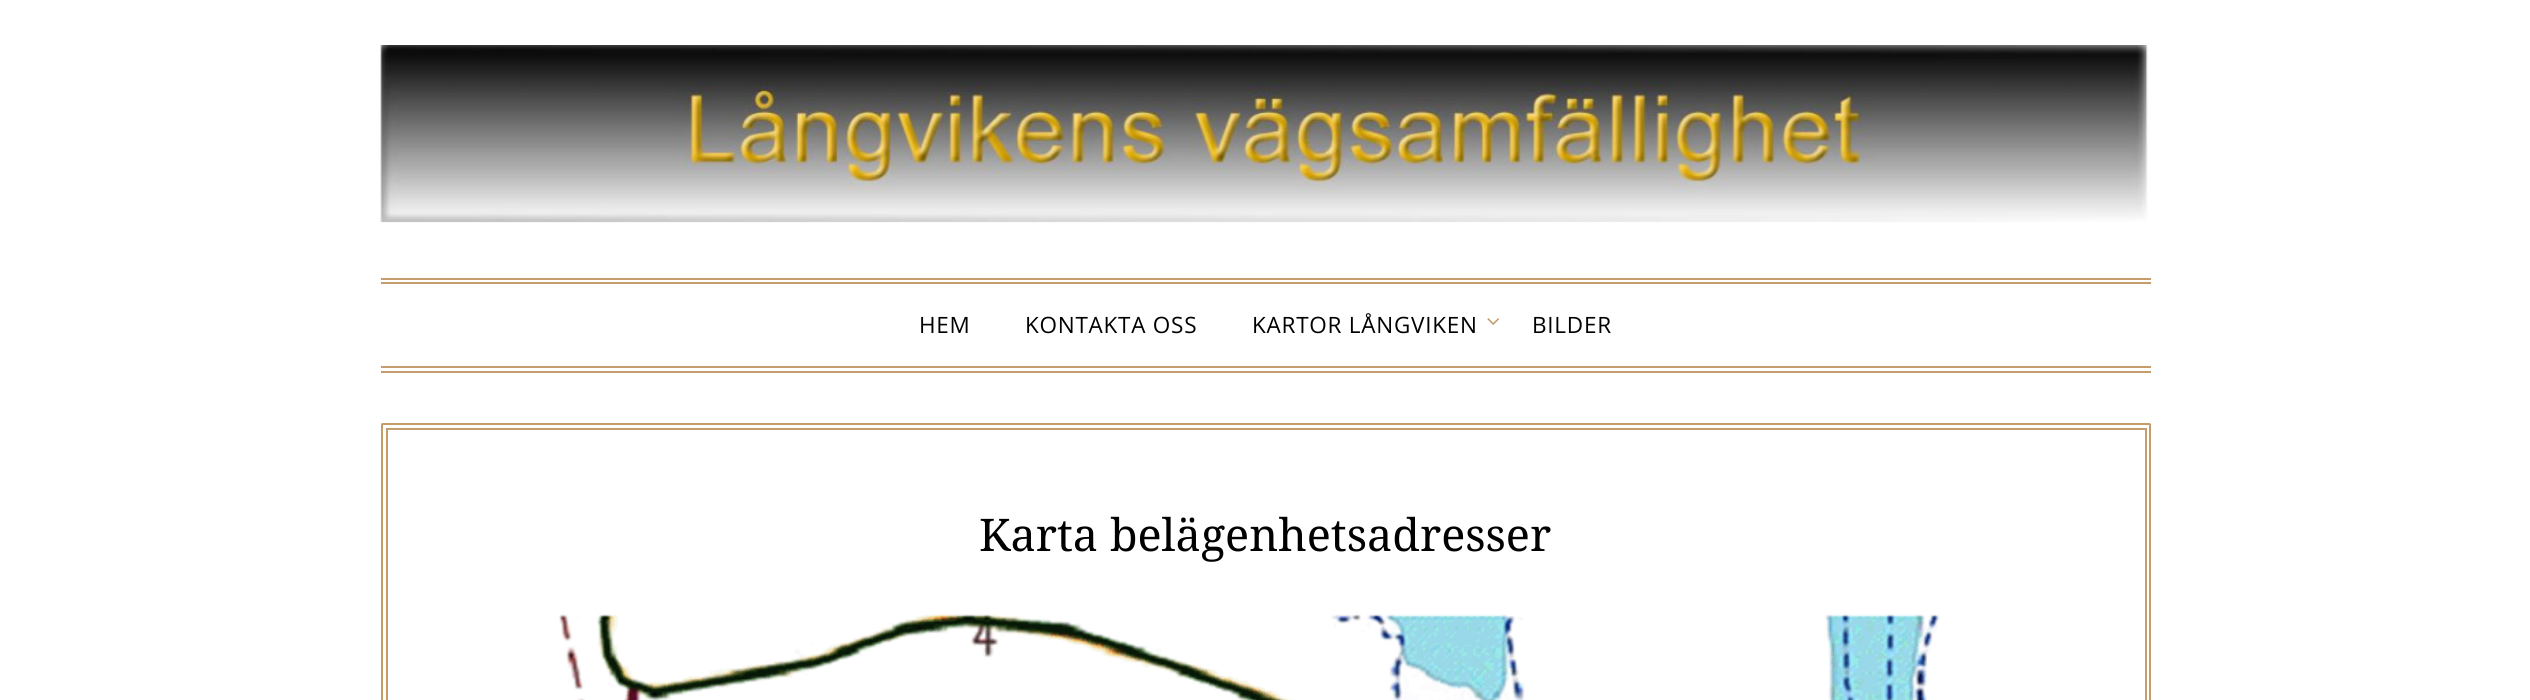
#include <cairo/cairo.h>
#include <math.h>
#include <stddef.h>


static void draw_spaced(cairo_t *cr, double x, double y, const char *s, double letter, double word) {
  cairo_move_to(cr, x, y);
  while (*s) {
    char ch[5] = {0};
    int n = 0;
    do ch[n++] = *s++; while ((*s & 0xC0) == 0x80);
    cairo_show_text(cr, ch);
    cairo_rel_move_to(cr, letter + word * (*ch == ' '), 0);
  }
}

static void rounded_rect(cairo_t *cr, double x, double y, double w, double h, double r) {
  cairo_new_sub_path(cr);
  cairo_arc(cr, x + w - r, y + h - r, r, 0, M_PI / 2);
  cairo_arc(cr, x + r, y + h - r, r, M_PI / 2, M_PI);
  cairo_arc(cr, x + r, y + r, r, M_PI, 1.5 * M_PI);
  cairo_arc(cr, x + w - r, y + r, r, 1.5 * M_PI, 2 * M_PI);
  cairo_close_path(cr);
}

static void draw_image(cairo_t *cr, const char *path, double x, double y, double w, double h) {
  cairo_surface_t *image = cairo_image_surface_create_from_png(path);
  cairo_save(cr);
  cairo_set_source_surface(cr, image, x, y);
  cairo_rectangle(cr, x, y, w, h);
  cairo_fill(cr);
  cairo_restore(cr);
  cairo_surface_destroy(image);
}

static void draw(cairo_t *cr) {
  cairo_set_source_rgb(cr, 1, 1, 1);
  cairo_paint(cr);
  draw_image(cr, "images/1.png", 380, 45, 1768, 178);
  cairo_set_source_rgb(cr, 198 / 255.0, 156 / 255.0, 109 / 255.0);
  cairo_rectangle(cr, 381, 278, 1770, 2);
  cairo_fill(cr);
  cairo_rectangle(cr, 381, 282, 1770, 2);
  cairo_fill(cr);
  cairo_rectangle(cr, 381, 366, 1770, 2);
  cairo_fill(cr);
  cairo_rectangle(cr, 381, 371, 1770, 2);
  cairo_fill(cr);
  draw_image(cr, "images/2.png", 1487, 318, 12, 7);
  rounded_rect(cr, 382, 424, 1768, 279, 0.5);
  cairo_stroke(cr);
  cairo_rectangle(cr, 387, 429, 1759, 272);
  cairo_stroke(cr);
  draw_image(cr, "images/3.png", 559, 614, 1381, 86);
  cairo_select_font_face(cr, "Open Sans", CAIRO_FONT_SLANT_NORMAL, CAIRO_FONT_WEIGHT_NORMAL);
  cairo_set_font_size(cr, 22.5);
  cairo_set_source_rgb(cr, 0, 0, 0);
  draw_spaced(cr, 919, 333, "HEM", 0.75, 0);
  draw_spaced(cr, 1025, 333, "KONTAKTA OSS", 0.75, 0);
  draw_spaced(cr, 1252, 333, "KARTOR LÅNGVIKEN", 0.75, 0);
  draw_spaced(cr, 1532, 333, "BILDER", 0.75, 0);
  cairo_select_font_face(cr, "Noto Serif", CAIRO_FONT_SLANT_NORMAL, CAIRO_FONT_WEIGHT_NORMAL);
  cairo_set_font_size(cr, 45);
  cairo_move_to(cr, 979, 551);
  cairo_show_text(cr, "Karta belägenhetsadresser");
}

int main(void) {
  cairo_surface_t *surface = cairo_image_surface_create(CAIRO_FORMAT_RGB24, 2530, 700);
  cairo_t *cr = cairo_create(surface);
  cairo_font_options_t *options = cairo_font_options_create();
  cairo_font_options_set_hint_metrics(options, CAIRO_HINT_METRICS_OFF);
  cairo_font_options_set_hint_style(options, CAIRO_HINT_STYLE_NONE);
  cairo_set_font_options(cr, options);
  cairo_set_miter_limit(cr, 4);
  draw(cr);
  cairo_surface_write_to_png(surface, "out.png");
  cairo_font_options_destroy(options);
  cairo_destroy(cr);
  cairo_surface_destroy(surface);
  return 0;
}
